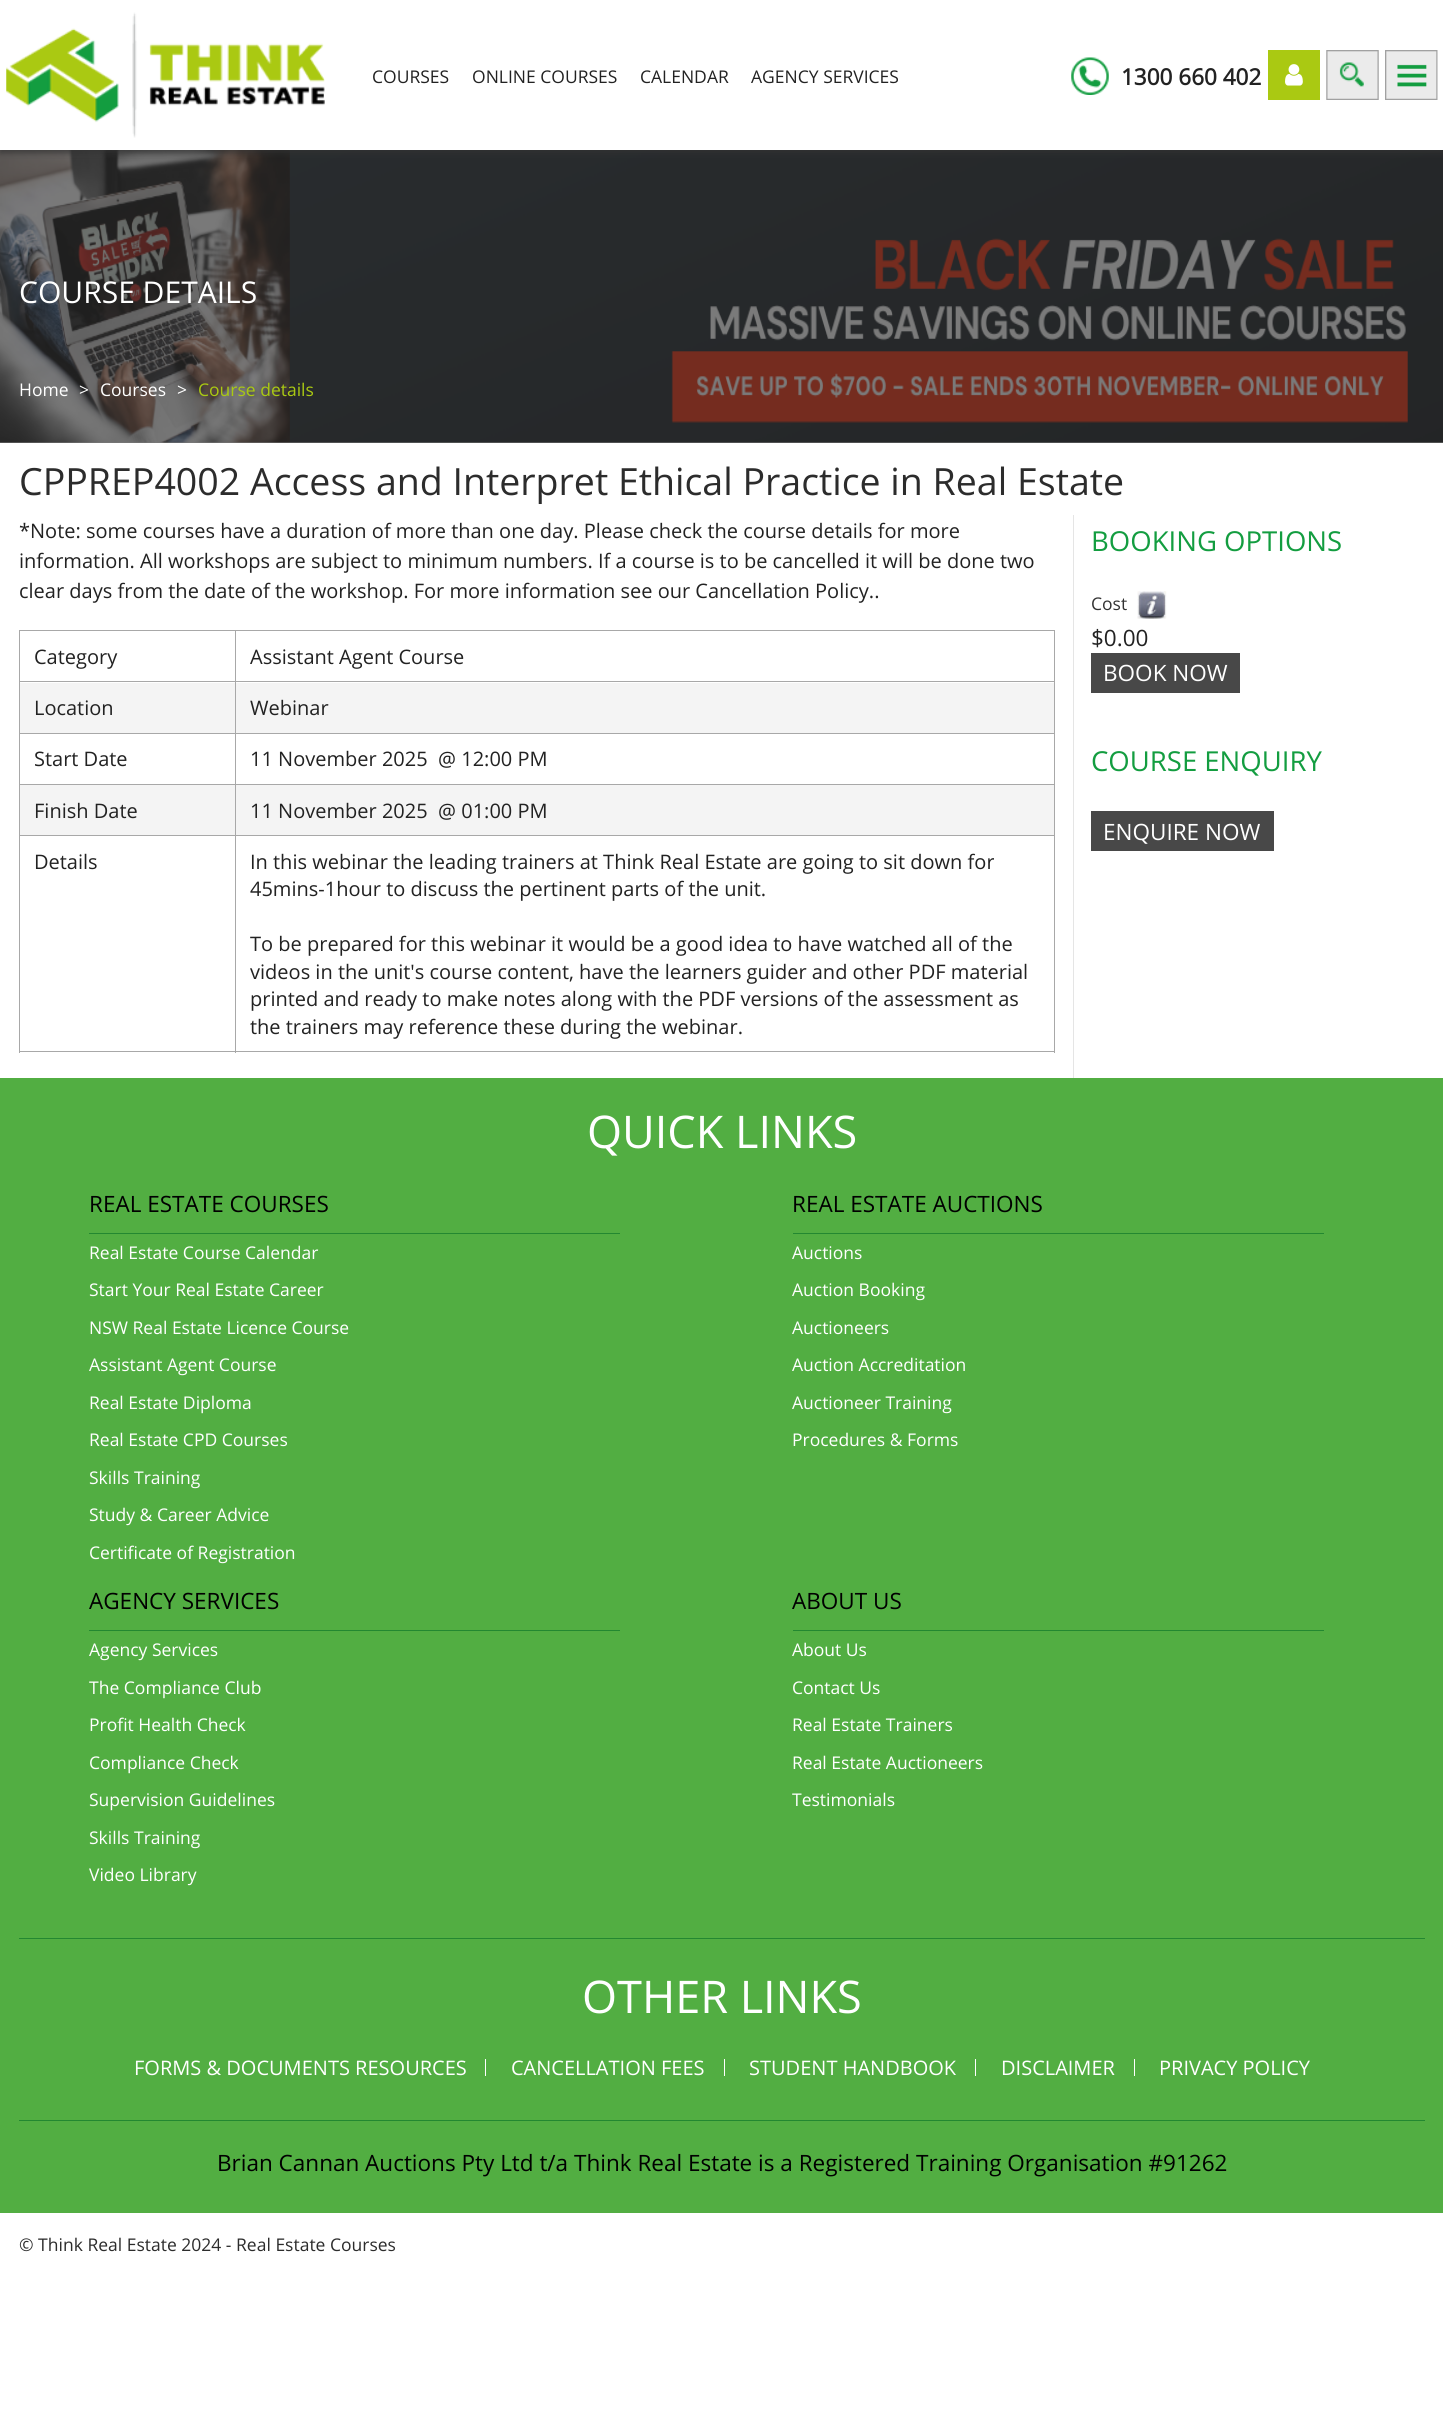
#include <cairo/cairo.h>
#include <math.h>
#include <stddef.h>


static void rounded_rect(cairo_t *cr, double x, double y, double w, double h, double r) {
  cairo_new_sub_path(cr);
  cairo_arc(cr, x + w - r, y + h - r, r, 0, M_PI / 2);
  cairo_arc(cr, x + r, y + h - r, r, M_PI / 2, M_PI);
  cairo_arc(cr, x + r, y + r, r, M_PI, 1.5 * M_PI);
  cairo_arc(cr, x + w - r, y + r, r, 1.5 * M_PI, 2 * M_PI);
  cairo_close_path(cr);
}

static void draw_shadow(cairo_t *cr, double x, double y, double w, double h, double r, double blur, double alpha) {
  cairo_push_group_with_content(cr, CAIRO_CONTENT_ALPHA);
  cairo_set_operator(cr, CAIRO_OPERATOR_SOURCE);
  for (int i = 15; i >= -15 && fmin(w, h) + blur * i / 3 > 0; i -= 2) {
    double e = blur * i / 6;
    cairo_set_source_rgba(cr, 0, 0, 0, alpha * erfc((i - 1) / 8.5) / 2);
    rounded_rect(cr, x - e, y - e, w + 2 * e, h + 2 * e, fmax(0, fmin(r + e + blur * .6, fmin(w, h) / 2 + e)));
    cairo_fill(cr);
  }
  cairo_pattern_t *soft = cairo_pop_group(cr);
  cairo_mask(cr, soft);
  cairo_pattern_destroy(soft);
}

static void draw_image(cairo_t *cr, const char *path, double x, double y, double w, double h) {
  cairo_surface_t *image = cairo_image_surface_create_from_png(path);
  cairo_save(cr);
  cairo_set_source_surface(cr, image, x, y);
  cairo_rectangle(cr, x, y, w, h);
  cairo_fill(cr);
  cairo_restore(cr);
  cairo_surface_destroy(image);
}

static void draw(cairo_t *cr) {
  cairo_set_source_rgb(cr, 1, 1, 1);
  cairo_paint(cr);
  cairo_set_source_rgb(cr, 123 / 255.0, 123 / 255.0, 123 / 255.0);
  cairo_rectangle(cr, 0, 442, 1443, 1);
  cairo_fill(cr);
  draw_image(cr, "images/6.png", 0, 150, 1443, 293);
  cairo_save(cr);
  cairo_rectangle(cr, 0, 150, 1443, 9);
  cairo_clip(cr);
  cairo_set_source_rgb(cr, 50 / 255.0, 50 / 255.0, 50 / 255.0);
  draw_shadow(cr, 0, 3, 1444, 150, 0, 3, 0.75);
  cairo_restore(cr);
  draw_image(cr, "images/1.png", 6, 12, 319, 126);
  draw_image(cr, "images/2.png", 1071, 57, 38, 38);
  cairo_set_source_rgb(cr, 170 / 255.0, 201 / 255.0, 18 / 255.0);
  cairo_rectangle(cr, 1268, 50, 52, 50);
  cairo_fill(cr);
  draw_image(cr, "images/3.png", 1285, 64, 18, 22);
  draw_image(cr, "images/4.png", 1326, 50, 53, 50);
  draw_image(cr, "images/5.png", 1385, 50, 53, 50);
  cairo_set_source_rgb(cr, 229 / 255.0, 229 / 255.0, 229 / 255.0);
  cairo_rectangle(cr, 1073, 515, 1, 563);
  cairo_fill(cr);
  cairo_set_source_rgb(cr, 168 / 255.0, 168 / 255.0, 168 / 255.0);
  cairo_rectangle(cr, 235, 630, 820, 1);
  cairo_fill(cr);
  cairo_rectangle(cr, 235, 681, 820, 1);
  cairo_fill(cr);
  cairo_rectangle(cr, 235, 733, 820, 1);
  cairo_fill(cr);
  cairo_rectangle(cr, 235, 784, 820, 1);
  cairo_fill(cr);
  cairo_rectangle(cr, 235, 835, 820, 1);
  cairo_fill(cr);
  cairo_rectangle(cr, 1054, 835, 1, 218);
  cairo_fill(cr);
  cairo_rectangle(cr, 235, 1051, 820, 1);
  cairo_fill(cr);
  cairo_rectangle(cr, 235, 835, 1, 218);
  cairo_fill(cr);
  cairo_rectangle(cr, 19, 835, 217, 1);
  cairo_fill(cr);
  cairo_rectangle(cr, 235, 784, 1, 52);
  cairo_fill(cr);
  cairo_rectangle(cr, 19, 784, 217, 1);
  cairo_fill(cr);
  cairo_rectangle(cr, 235, 733, 1, 52);
  cairo_fill(cr);
  cairo_rectangle(cr, 19, 733, 217, 1);
  cairo_fill(cr);
  cairo_rectangle(cr, 235, 681, 1, 53);
  cairo_fill(cr);
  cairo_rectangle(cr, 19, 681, 217, 1);
  cairo_fill(cr);
  cairo_rectangle(cr, 235, 630, 1, 53);
  cairo_fill(cr);
  cairo_rectangle(cr, 19, 630, 217, 1);
  cairo_fill(cr);
  cairo_rectangle(cr, 19, 1051, 217, 1);
  cairo_fill(cr);
  cairo_rectangle(cr, 19, 835, 1, 218);
  cairo_fill(cr);
  cairo_rectangle(cr, 19, 784, 1, 52);
  cairo_fill(cr);
  cairo_rectangle(cr, 19, 733, 1, 52);
  cairo_fill(cr);
  cairo_rectangle(cr, 19, 681, 1, 53);
  cairo_fill(cr);
  cairo_rectangle(cr, 19, 630, 1, 53);
  cairo_fill(cr);
  cairo_rectangle(cr, 1054, 784, 1, 52);
  cairo_fill(cr);
  cairo_rectangle(cr, 1054, 733, 1, 52);
  cairo_fill(cr);
  cairo_rectangle(cr, 1054, 681, 1, 53);
  cairo_fill(cr);
  cairo_rectangle(cr, 1054, 630, 1, 53);
  cairo_fill(cr);
  cairo_set_source_rgb(cr, 244 / 255.0, 244 / 255.0, 244 / 255.0);
  cairo_rectangle(cr, 20, 683, 215, 50);
  cairo_fill(cr);
  cairo_rectangle(cr, 236, 683, 818, 50);
  cairo_fill(cr);
  cairo_rectangle(cr, 20, 785, 215, 50);
  cairo_fill(cr);
  cairo_rectangle(cr, 236, 785, 818, 50);
  cairo_fill(cr);
  draw_image(cr, "images/7.png", 1137, 591, 30, 28);
  cairo_set_source_rgb(cr, 72 / 255.0, 72 / 255.0, 72 / 255.0);
  cairo_rectangle(cr, 1091, 653, 149, 40);
  cairo_fill(cr);
  cairo_rectangle(cr, 1091, 811, 183, 40);
  cairo_fill(cr);
  cairo_set_source_rgb(cr, 82 / 255.0, 174 / 255.0, 66 / 255.0);
  cairo_rectangle(cr, 0, 1078, 1443, 1135);
  cairo_fill(cr);
  cairo_set_source_rgb(cr, 35 / 255.0, 136 / 255.0, 49 / 255.0);
  cairo_rectangle(cr, 89, 1233, 531, 1);
  cairo_fill(cr);
  cairo_rectangle(cr, 793, 1233, 531, 1);
  cairo_fill(cr);
  cairo_rectangle(cr, 89, 1630, 531, 1);
  cairo_fill(cr);
  cairo_rectangle(cr, 793, 1630, 531, 1);
  cairo_fill(cr);
  cairo_rectangle(cr, 19, 1938, 1406, 1);
  cairo_fill(cr);
  cairo_rectangle(cr, 19, 2120, 1406, 1);
  cairo_fill(cr);
  cairo_set_source_rgb(cr, 1, 1, 1);
  cairo_rectangle(cr, 485, 2059, 1, 17);
  cairo_fill(cr);
  cairo_rectangle(cr, 724, 2059, 1, 17);
  cairo_fill(cr);
  cairo_rectangle(cr, 975, 2059, 1, 17);
  cairo_fill(cr);
  cairo_rectangle(cr, 1134, 2059, 1, 17);
  cairo_fill(cr);
  cairo_select_font_face(cr, "Open Sans", CAIRO_FONT_SLANT_NORMAL, CAIRO_FONT_WEIGHT_NORMAL);
  cairo_set_font_size(cr, 17.5);
  cairo_set_source_rgb(cr, 34 / 255.0, 34 / 255.0, 34 / 255.0);
  cairo_move_to(cr, 372, 83);
  cairo_show_text(cr, "COURSES");
  cairo_move_to(cr, 472, 83);
  cairo_show_text(cr, "ONLINE COURSES");
  cairo_move_to(cr, 640, 83);
  cairo_show_text(cr, "CALENDAR");
  cairo_move_to(cr, 751, 83);
  cairo_show_text(cr, "AGENCY SERVICES");
  cairo_select_font_face(cr, "Open Sans", CAIRO_FONT_SLANT_NORMAL, CAIRO_FONT_WEIGHT_BOLD);
  cairo_set_font_size(cr, 22.5);
  cairo_move_to(cr, 1121, 85);
  cairo_show_text(cr, "1300 660 402");
  cairo_select_font_face(cr, "Open Sans", CAIRO_FONT_SLANT_NORMAL, CAIRO_FONT_WEIGHT_NORMAL);
  cairo_set_font_size(cr, 30);
  cairo_set_source_rgb(cr, 1, 1, 1);
  cairo_move_to(cr, 19, 303);
  cairo_show_text(cr, "COURSE DETAILS");
  cairo_set_font_size(cr, 17.5);
  cairo_move_to(cr, 19, 396);
  cairo_show_text(cr, "Home");
  cairo_move_to(cr, 79, 396);
  cairo_show_text(cr, ">");
  cairo_move_to(cr, 100, 396);
  cairo_show_text(cr, "Courses");
  cairo_move_to(cr, 177, 396);
  cairo_show_text(cr, ">");
  cairo_set_source_rgb(cr, 170 / 255.0, 201 / 255.0, 18 / 255.0);
  cairo_move_to(cr, 198, 396);
  cairo_show_text(cr, "Course details");
  cairo_set_font_size(cr, 37.5);
  cairo_set_source_rgb(cr, 44 / 255.0, 44 / 255.0, 44 / 255.0);
  cairo_move_to(cr, 19, 495);
  cairo_show_text(cr, "CPPREP4002 Access and Interpret Ethical Practice in Real Estate");
  cairo_set_font_size(cr, 20);
  cairo_set_source_rgb(cr, 34 / 255.0, 34 / 255.0, 34 / 255.0);
  cairo_move_to(cr, 19, 538);
  cairo_show_text(cr, "*Note: some courses have a duration of more than one day. Please check the course details for more");
  cairo_move_to(cr, 19, 568);
  cairo_show_text(cr, "information. All workshops are subject to minimum numbers. If a course is to be cancelled it will be done two");
  cairo_move_to(cr, 19, 598);
  cairo_show_text(cr, "clear days from the date of the workshop. For more information see our Cancellation Policy..");
  cairo_move_to(cr, 34, 664);
  cairo_show_text(cr, "Category");
  cairo_move_to(cr, 250, 664);
  cairo_show_text(cr, "Assistant Agent Course");
  cairo_move_to(cr, 34, 715);
  cairo_show_text(cr, "Location");
  cairo_move_to(cr, 250, 715);
  cairo_show_text(cr, "Webinar");
  cairo_move_to(cr, 34, 766);
  cairo_show_text(cr, "Start Date");
  cairo_move_to(cr, 250, 766);
  cairo_show_text(cr, "11 November 2025  @ 12:00 PM");
  cairo_move_to(cr, 34, 818);
  cairo_show_text(cr, "Finish Date");
  cairo_move_to(cr, 250, 818);
  cairo_show_text(cr, "11 November 2025  @ 01:00 PM");
  cairo_move_to(cr, 34, 869);
  cairo_show_text(cr, "Details");
  cairo_move_to(cr, 250, 869);
  cairo_show_text(cr, "In this webinar the leading trainers at Think Real Estate are going to sit down for");
  cairo_move_to(cr, 250, 896);
  cairo_show_text(cr, "45mins-1hour to discuss the pertinent parts of the unit.");
  cairo_move_to(cr, 250, 951);
  cairo_show_text(cr, "To be prepared for this webinar it would be a good idea to have watched all of the");
  cairo_move_to(cr, 250, 979);
  cairo_show_text(cr, "videos in the unit's course content‚ have the learners guider and other PDF material");
  cairo_move_to(cr, 250, 1006);
  cairo_show_text(cr, "printed and ready to make notes along with the PDF versions of the assessment as");
  cairo_move_to(cr, 250, 1034);
  cairo_show_text(cr, "the trainers may reference these during the webinar.");
  cairo_set_font_size(cr, 27.5);
  cairo_set_source_rgb(cr, 19 / 255.0, 157 / 255.0, 64 / 255.0);
  cairo_move_to(cr, 1091, 551);
  cairo_show_text(cr, "BOOKING OPTIONS");
  cairo_set_font_size(cr, 17.5);
  cairo_set_source_rgb(cr, 51 / 255.0, 51 / 255.0, 51 / 255.0);
  cairo_move_to(cr, 1091, 610);
  cairo_show_text(cr, "Cost");
  cairo_set_font_size(cr, 22.5);
  cairo_set_source_rgb(cr, 34 / 255.0, 34 / 255.0, 34 / 255.0);
  cairo_move_to(cr, 1091, 646);
  cairo_show_text(cr, "$0.00");
  cairo_set_source_rgb(cr, 1, 1, 1);
  cairo_move_to(cr, 1103, 681);
  cairo_show_text(cr, "BOOK NOW");
  cairo_set_font_size(cr, 27.5);
  cairo_set_source_rgb(cr, 19 / 255.0, 157 / 255.0, 64 / 255.0);
  cairo_move_to(cr, 1091, 771);
  cairo_show_text(cr, "COURSE ENQUIRY");
  cairo_set_font_size(cr, 22.5);
  cairo_set_source_rgb(cr, 1, 1, 1);
  cairo_move_to(cr, 1103, 840);
  cairo_show_text(cr, "ENQUIRE NOW");
  cairo_set_font_size(cr, 45);
  cairo_move_to(cr, 587, 1148);
  cairo_show_text(cr, "QUICK LINKS");
  cairo_set_font_size(cr, 22.5);
  cairo_set_source_rgb(cr, 0, 0, 0);
  cairo_move_to(cr, 89, 1212);
  cairo_show_text(cr, "REAL ESTATE COURSES");
  cairo_set_font_size(cr, 17.5);
  cairo_set_source_rgb(cr, 1, 1, 1);
  cairo_move_to(cr, 89, 1259);
  cairo_show_text(cr, "Real Estate Course Calendar");
  cairo_move_to(cr, 89, 1296);
  cairo_show_text(cr, "Start Your Real Estate Career");
  cairo_move_to(cr, 89, 1334);
  cairo_show_text(cr, "NSW Real Estate Licence Course");
  cairo_move_to(cr, 89, 1371);
  cairo_show_text(cr, "Assistant Agent Course");
  cairo_move_to(cr, 89, 1409);
  cairo_show_text(cr, "Real Estate Diploma");
  cairo_move_to(cr, 89, 1446);
  cairo_show_text(cr, "Real Estate CPD Courses");
  cairo_move_to(cr, 89, 1484);
  cairo_show_text(cr, "Skills Training");
  cairo_move_to(cr, 89, 1521);
  cairo_show_text(cr, "Study & Career Advice");
  cairo_move_to(cr, 89, 1559);
  cairo_show_text(cr, "Certificate of Registration");
  cairo_set_font_size(cr, 22.5);
  cairo_set_source_rgb(cr, 0, 0, 0);
  cairo_move_to(cr, 792, 1212);
  cairo_show_text(cr, "REAL ESTATE AUCTIONS");
  cairo_set_font_size(cr, 17.5);
  cairo_set_source_rgb(cr, 1, 1, 1);
  cairo_move_to(cr, 792, 1259);
  cairo_show_text(cr, "Auctions");
  cairo_move_to(cr, 792, 1296);
  cairo_show_text(cr, "Auction Booking");
  cairo_move_to(cr, 792, 1334);
  cairo_show_text(cr, "Auctioneers");
  cairo_move_to(cr, 792, 1371);
  cairo_show_text(cr, "Auction Accreditation");
  cairo_move_to(cr, 792, 1409);
  cairo_show_text(cr, "Auctioneer Training");
  cairo_move_to(cr, 792, 1446);
  cairo_show_text(cr, "Procedures & Forms");
  cairo_set_font_size(cr, 22.5);
  cairo_set_source_rgb(cr, 0, 0, 0);
  cairo_move_to(cr, 89, 1609);
  cairo_show_text(cr, "AGENCY SERVICES");
  cairo_set_font_size(cr, 17.5);
  cairo_set_source_rgb(cr, 1, 1, 1);
  cairo_move_to(cr, 89, 1656);
  cairo_show_text(cr, "Agency Services");
  cairo_move_to(cr, 89, 1694);
  cairo_show_text(cr, "The Compliance Club");
  cairo_move_to(cr, 89, 1731);
  cairo_show_text(cr, "Profit Health Check");
  cairo_move_to(cr, 89, 1769);
  cairo_show_text(cr, "Compliance Check");
  cairo_move_to(cr, 89, 1806);
  cairo_show_text(cr, "Supervision Guidelines");
  cairo_move_to(cr, 89, 1844);
  cairo_show_text(cr, "Skills Training");
  cairo_move_to(cr, 89, 1881);
  cairo_show_text(cr, "Video Library");
  cairo_set_font_size(cr, 22.5);
  cairo_set_source_rgb(cr, 0, 0, 0);
  cairo_move_to(cr, 792, 1609);
  cairo_show_text(cr, "ABOUT US");
  cairo_set_font_size(cr, 17.5);
  cairo_set_source_rgb(cr, 1, 1, 1);
  cairo_move_to(cr, 792, 1656);
  cairo_show_text(cr, "About Us");
  cairo_move_to(cr, 792, 1694);
  cairo_show_text(cr, "Contact Us");
  cairo_move_to(cr, 792, 1731);
  cairo_show_text(cr, "Real Estate Trainers");
  cairo_move_to(cr, 792, 1769);
  cairo_show_text(cr, "Real Estate Auctioneers");
  cairo_move_to(cr, 792, 1806);
  cairo_show_text(cr, "Testimonials");
  cairo_set_font_size(cr, 45);
  cairo_move_to(cr, 582, 2013);
  cairo_show_text(cr, "OTHER LINKS");
  cairo_set_font_size(cr, 20);
  cairo_move_to(cr, 134, 2075);
  cairo_show_text(cr, "FORMS & DOCUMENTS RESOURCES");
  cairo_move_to(cr, 511, 2075);
  cairo_show_text(cr, "CANCELLATION FEES");
  cairo_move_to(cr, 749, 2075);
  cairo_show_text(cr, "STUDENT HANDBOOK");
  cairo_move_to(cr, 1001, 2075);
  cairo_show_text(cr, "DISCLAIMER");
  cairo_move_to(cr, 1159, 2075);
  cairo_show_text(cr, "PRIVACY POLICY");
  cairo_set_font_size(cr, 22.5);
  cairo_set_source_rgb(cr, 0, 0, 0);
  cairo_move_to(cr, 217, 2171);
  cairo_show_text(cr, "Brian Cannan Auctions Pty Ltd t/a Think Real Estate is a Registered Training Organisation #91262");
  cairo_set_font_size(cr, 17.5);
  cairo_set_source_rgb(cr, 44 / 255.0, 44 / 255.0, 44 / 255.0);
  cairo_move_to(cr, 19, 2251);
  cairo_show_text(cr, "© Think Real Estate 2024 - Real Estate Courses");
}

int main(void) {
  cairo_surface_t *surface = cairo_image_surface_create(CAIRO_FORMAT_RGB24, 1443, 2426);
  cairo_t *cr = cairo_create(surface);
  cairo_font_options_t *options = cairo_font_options_create();
  cairo_font_options_set_hint_metrics(options, CAIRO_HINT_METRICS_OFF);
  cairo_font_options_set_hint_style(options, CAIRO_HINT_STYLE_NONE);
  cairo_set_font_options(cr, options);
  cairo_set_miter_limit(cr, 4);
  draw(cr);
  cairo_surface_write_to_png(surface, "out.png");
  cairo_font_options_destroy(options);
  cairo_destroy(cr);
  cairo_surface_destroy(surface);
  return 0;
}
